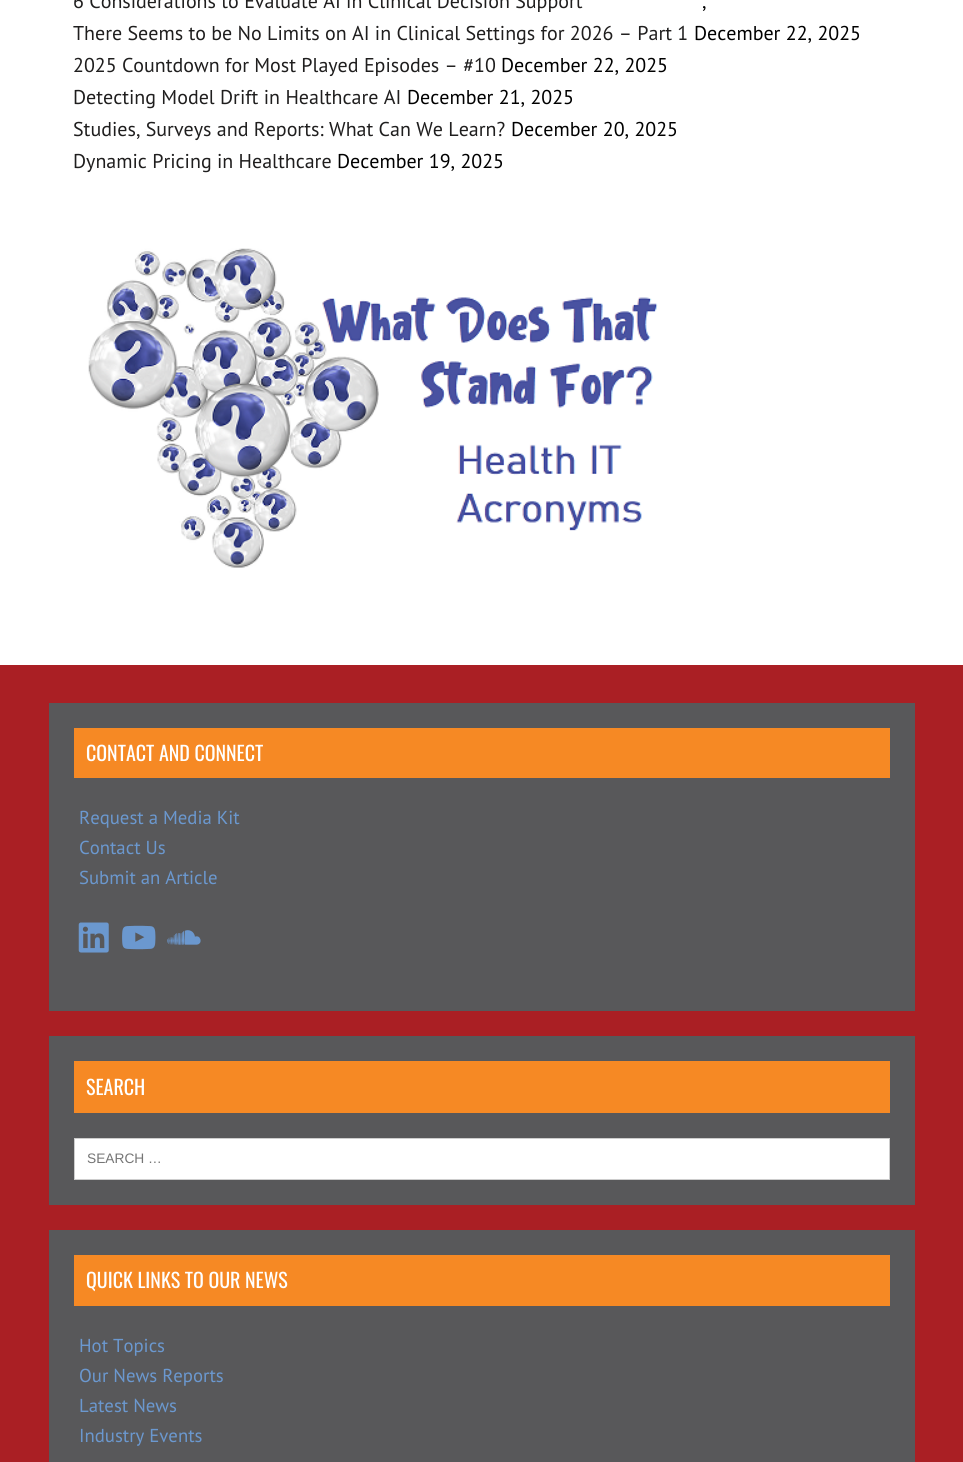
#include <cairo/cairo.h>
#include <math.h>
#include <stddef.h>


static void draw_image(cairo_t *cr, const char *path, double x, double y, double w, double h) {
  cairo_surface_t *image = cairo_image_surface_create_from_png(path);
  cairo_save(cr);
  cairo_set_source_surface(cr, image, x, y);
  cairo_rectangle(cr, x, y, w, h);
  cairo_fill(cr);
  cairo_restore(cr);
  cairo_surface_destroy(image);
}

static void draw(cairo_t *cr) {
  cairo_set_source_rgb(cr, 1, 1, 1);
  cairo_paint(cr);
  draw_image(cr, "images/1.png", 88, 248, 570, 320);
  cairo_set_source_rgb(cr, 170 / 255.0, 31 / 255.0, 36 / 255.0);
  cairo_rectangle(cr, 0, 665, 963, 797);
  cairo_fill(cr);
  cairo_set_source_rgb(cr, 88 / 255.0, 88 / 255.0, 90 / 255.0);
  cairo_rectangle(cr, 49, 703, 866, 308);
  cairo_fill(cr);
  cairo_set_source_rgb(cr, 246 / 255.0, 137 / 255.0, 36 / 255.0);
  cairo_rectangle(cr, 74, 728, 816, 50);
  cairo_fill(cr);
  draw_image(cr, "images/2.png", 78, 922, 31, 31);
  draw_image(cr, "images/3.png", 122, 925, 34, 25);
  draw_image(cr, "images/4.png", 167, 930, 34, 15);
  cairo_set_source_rgb(cr, 88 / 255.0, 88 / 255.0, 90 / 255.0);
  cairo_rectangle(cr, 49, 1036, 866, 169);
  cairo_fill(cr);
  cairo_set_source_rgb(cr, 246 / 255.0, 137 / 255.0, 36 / 255.0);
  cairo_rectangle(cr, 74, 1061, 816, 52);
  cairo_fill(cr);
  cairo_set_source_rgb(cr, 1, 1, 1);
  cairo_rectangle(cr, 74.5, 1138.5, 815, 41);
  cairo_fill_preserve(cr);
  cairo_set_source_rgb(cr, 205 / 255.0, 205 / 255.0, 205 / 255.0);
  cairo_set_line_width(cr, 1);
  cairo_stroke(cr);
  cairo_set_source_rgb(cr, 88 / 255.0, 88 / 255.0, 90 / 255.0);
  cairo_rectangle(cr, 49, 1230, 866, 232);
  cairo_fill(cr);
  cairo_set_source_rgb(cr, 246 / 255.0, 137 / 255.0, 36 / 255.0);
  cairo_rectangle(cr, 74, 1255, 816, 51);
  cairo_fill(cr);
  cairo_select_font_face(cr, "PT Sans", CAIRO_FONT_SLANT_NORMAL, CAIRO_FONT_WEIGHT_NORMAL);
  cairo_set_font_size(cr, 20);
  cairo_set_source_rgb(cr, 31 / 255.0, 30 / 255.0, 30 / 255.0);
  cairo_move_to(cr, 73, 8);
  cairo_show_text(cr, "6 Considerations to Evaluate AI in Clinical Decision Support");
  cairo_set_source_rgb(cr, 0, 0, 0);
  cairo_move_to(cr, 702, 8);
  cairo_show_text(cr, ",");
  cairo_set_source_rgb(cr, 31 / 255.0, 30 / 255.0, 30 / 255.0);
  cairo_move_to(cr, 73, 40);
  cairo_show_text(cr, "There Seems to be No Limits on AI in Clinical Settings for 2026 – Part 1");
  cairo_set_source_rgb(cr, 0, 0, 0);
  cairo_move_to(cr, 694, 40);
  cairo_show_text(cr, "December 22, 2025");
  cairo_set_source_rgb(cr, 31 / 255.0, 30 / 255.0, 30 / 255.0);
  cairo_move_to(cr, 73, 72);
  cairo_show_text(cr, "2025 Countdown for Most Played Episodes – #10");
  cairo_set_source_rgb(cr, 0, 0, 0);
  cairo_move_to(cr, 501, 72);
  cairo_show_text(cr, "December 22, 2025");
  cairo_set_source_rgb(cr, 31 / 255.0, 30 / 255.0, 30 / 255.0);
  cairo_move_to(cr, 73, 104);
  cairo_show_text(cr, "Detecting Model Drift in Healthcare AI");
  cairo_set_source_rgb(cr, 0, 0, 0);
  cairo_move_to(cr, 407, 104);
  cairo_show_text(cr, "December 21, 2025");
  cairo_set_source_rgb(cr, 31 / 255.0, 30 / 255.0, 30 / 255.0);
  cairo_move_to(cr, 73, 136);
  cairo_show_text(cr, "Studies, Surveys and Reports: What Can We Learn?");
  cairo_set_source_rgb(cr, 0, 0, 0);
  cairo_move_to(cr, 511, 136);
  cairo_show_text(cr, "December 20, 2025");
  cairo_set_source_rgb(cr, 31 / 255.0, 30 / 255.0, 30 / 255.0);
  cairo_move_to(cr, 73, 168);
  cairo_show_text(cr, "Dynamic Pricing in Healthcare");
  cairo_set_source_rgb(cr, 0, 0, 0);
  cairo_move_to(cr, 337, 168);
  cairo_show_text(cr, "December 19, 2025");
  cairo_select_font_face(cr, "Oswald", CAIRO_FONT_SLANT_NORMAL, CAIRO_FONT_WEIGHT_NORMAL);
  cairo_set_source_rgb(cr, 1, 1, 1);
  cairo_move_to(cr, 86, 761);
  cairo_show_text(cr, "CONTACT AND CONNECT");
  cairo_select_font_face(cr, "PT Sans", CAIRO_FONT_SLANT_NORMAL, CAIRO_FONT_WEIGHT_NORMAL);
  cairo_set_font_size(cr, 18.75);
  cairo_set_source_rgb(cr, 107 / 255.0, 152 / 255.0, 207 / 255.0);
  cairo_move_to(cr, 79, 824);
  cairo_show_text(cr, "Request a Media Kit");
  cairo_move_to(cr, 79, 854);
  cairo_show_text(cr, "Contact Us");
  cairo_move_to(cr, 79, 884);
  cairo_show_text(cr, "Submit an Article");
  cairo_select_font_face(cr, "Oswald", CAIRO_FONT_SLANT_NORMAL, CAIRO_FONT_WEIGHT_NORMAL);
  cairo_set_font_size(cr, 20);
  cairo_set_source_rgb(cr, 1, 1, 1);
  cairo_move_to(cr, 86, 1095);
  cairo_show_text(cr, "SEARCH");
  cairo_select_font_face(cr, "Liberation Sans", CAIRO_FONT_SLANT_NORMAL, CAIRO_FONT_WEIGHT_NORMAL);
  cairo_set_font_size(cr, 13.75);
  cairo_set_source_rgb(cr, 117 / 255.0, 117 / 255.0, 117 / 255.0);
  cairo_move_to(cr, 87, 1163);
  cairo_show_text(cr, "SEARCH …");
  cairo_select_font_face(cr, "Oswald", CAIRO_FONT_SLANT_NORMAL, CAIRO_FONT_WEIGHT_NORMAL);
  cairo_set_font_size(cr, 20);
  cairo_set_source_rgb(cr, 1, 1, 1);
  cairo_move_to(cr, 86, 1288);
  cairo_show_text(cr, "QUICK LINKS TO OUR NEWS");
  cairo_select_font_face(cr, "PT Sans", CAIRO_FONT_SLANT_NORMAL, CAIRO_FONT_WEIGHT_NORMAL);
  cairo_set_font_size(cr, 18.75);
  cairo_set_source_rgb(cr, 107 / 255.0, 152 / 255.0, 207 / 255.0);
  cairo_move_to(cr, 79, 1352);
  cairo_show_text(cr, "Hot Topics");
  cairo_move_to(cr, 79, 1382);
  cairo_show_text(cr, "Our News Reports");
  cairo_move_to(cr, 79, 1412);
  cairo_show_text(cr, "Latest News");
  cairo_move_to(cr, 79, 1442);
  cairo_show_text(cr, "Industry Events");
}

int main(void) {
  cairo_surface_t *surface = cairo_image_surface_create(CAIRO_FORMAT_RGB24, 963, 1462);
  cairo_t *cr = cairo_create(surface);
  cairo_font_options_t *options = cairo_font_options_create();
  cairo_font_options_set_hint_metrics(options, CAIRO_HINT_METRICS_OFF);
  cairo_font_options_set_hint_style(options, CAIRO_HINT_STYLE_NONE);
  cairo_set_font_options(cr, options);
  cairo_set_miter_limit(cr, 4);
  draw(cr);
  cairo_surface_write_to_png(surface, "out.png");
  cairo_font_options_destroy(options);
  cairo_destroy(cr);
  cairo_surface_destroy(surface);
  return 0;
}
